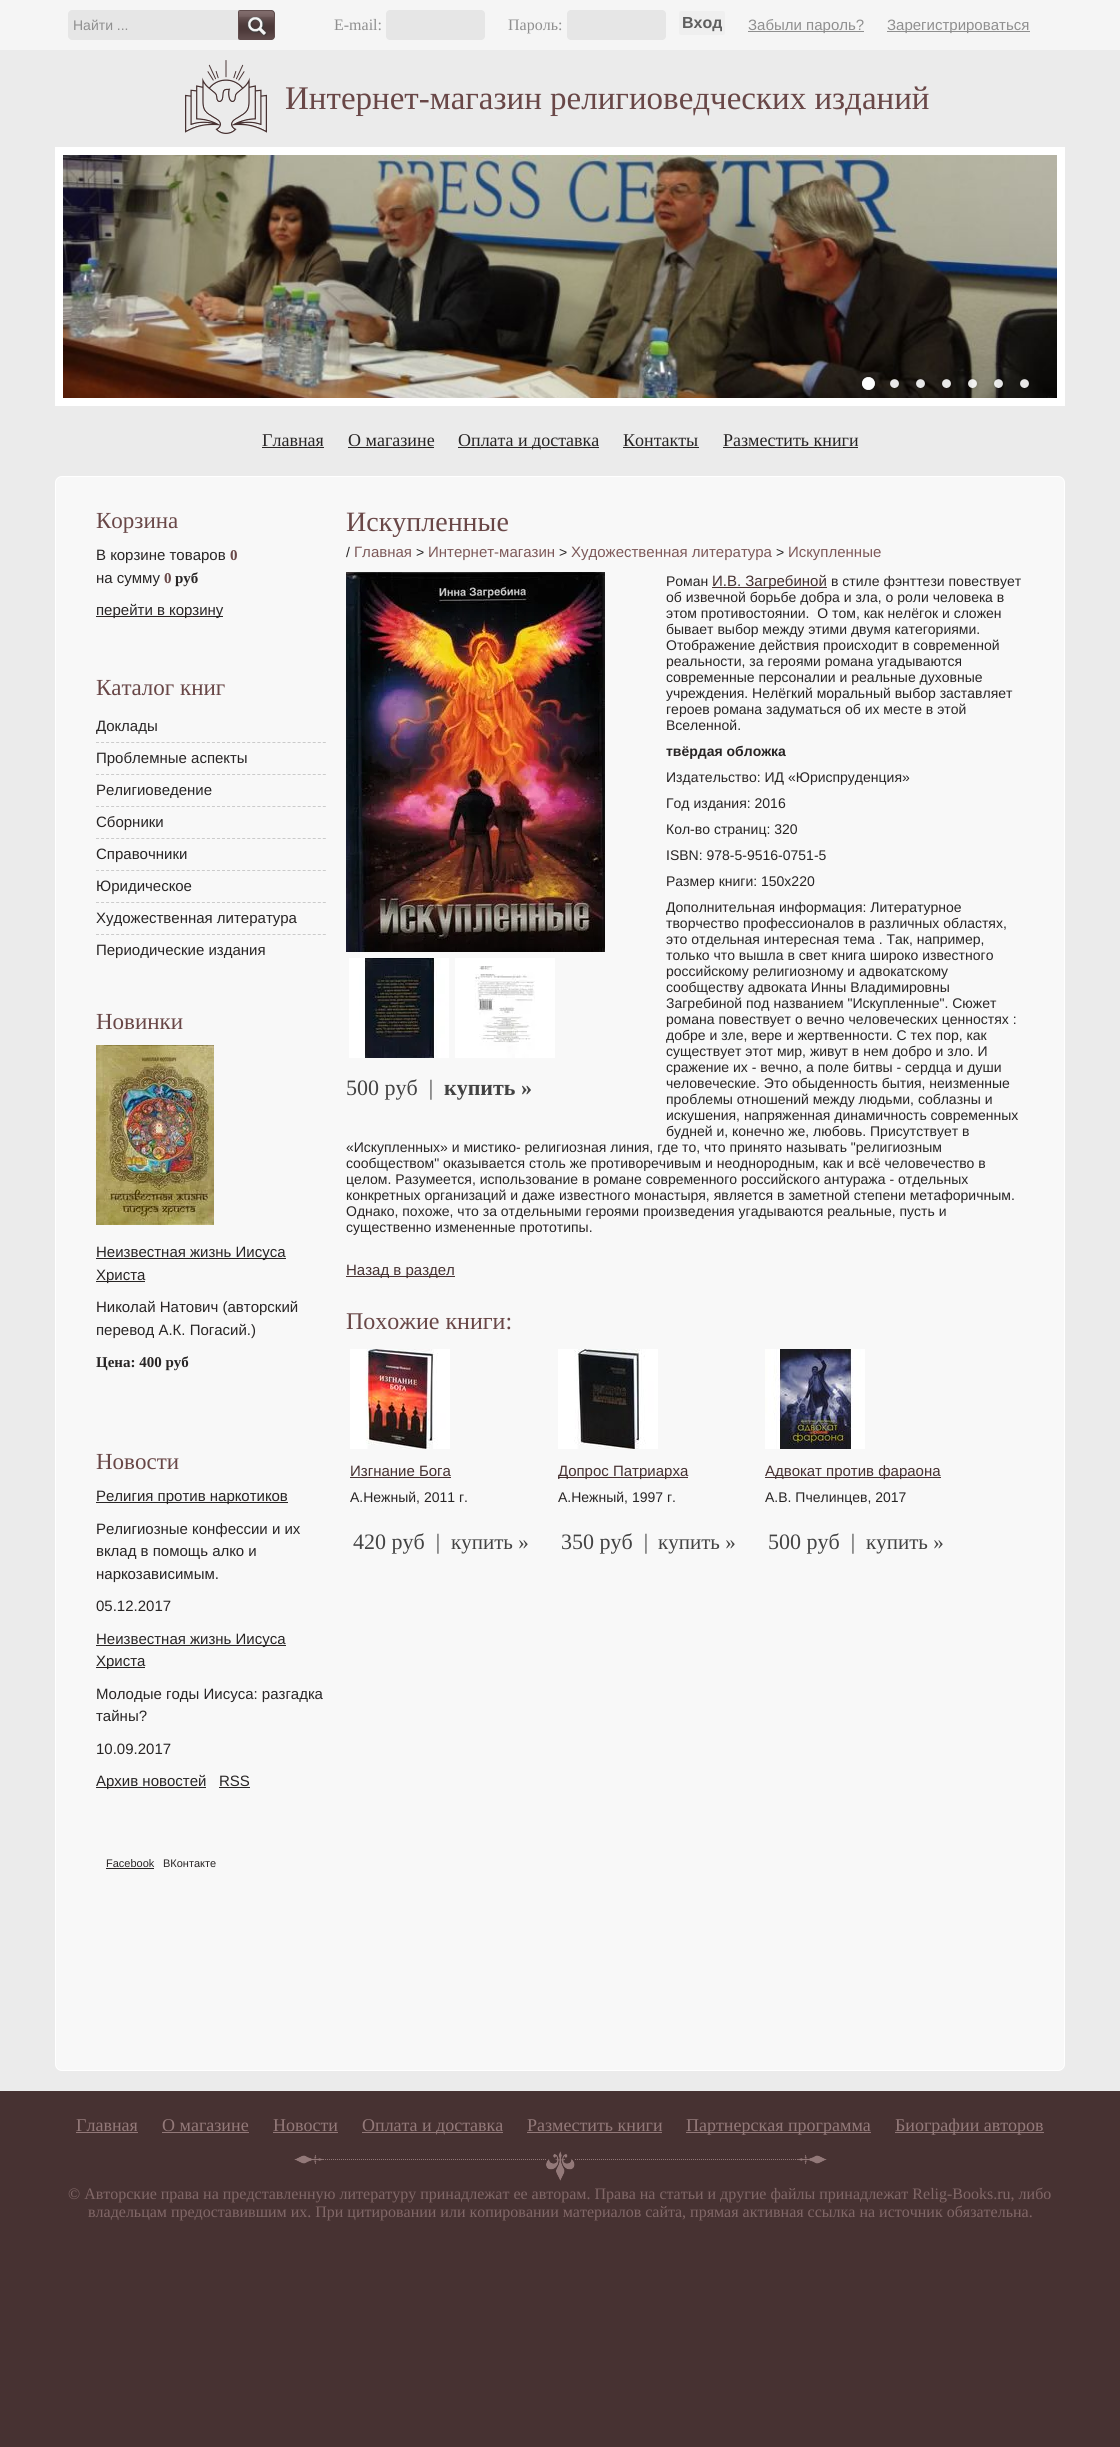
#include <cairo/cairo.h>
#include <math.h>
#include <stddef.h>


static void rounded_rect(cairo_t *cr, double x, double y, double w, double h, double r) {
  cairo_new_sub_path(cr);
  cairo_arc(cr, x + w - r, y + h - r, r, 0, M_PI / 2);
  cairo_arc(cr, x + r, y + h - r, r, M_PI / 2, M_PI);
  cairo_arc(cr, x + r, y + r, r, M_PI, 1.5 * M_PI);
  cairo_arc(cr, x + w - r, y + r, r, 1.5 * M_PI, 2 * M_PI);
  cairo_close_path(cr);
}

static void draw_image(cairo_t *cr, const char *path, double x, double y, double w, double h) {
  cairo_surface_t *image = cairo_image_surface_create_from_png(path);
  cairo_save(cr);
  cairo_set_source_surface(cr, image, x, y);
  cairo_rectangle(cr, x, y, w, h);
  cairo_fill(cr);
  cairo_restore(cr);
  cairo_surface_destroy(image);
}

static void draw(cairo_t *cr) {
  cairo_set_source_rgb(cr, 71 / 255.0, 50 / 255.0, 50 / 255.0);
  cairo_paint(cr);
  cairo_set_source_rgb(cr, 245 / 255.0, 245 / 255.0, 245 / 255.0);
  cairo_rectangle(cr, 0, 0, 1120, 50);
  cairo_fill(cr);
  cairo_set_source_rgb(cr, 230 / 255.0, 230 / 255.0, 230 / 255.0);
  cairo_new_path(cr);
  cairo_move_to(cr, 72, 10);
  cairo_line_to(cr, 243, 10);
  cairo_line_to(cr, 243, 40);
  cairo_line_to(cr, 72, 40);
  cairo_curve_to(cr, 70, 40, 68, 38, 68, 36);
  cairo_line_to(cr, 68, 14);
  cairo_curve_to(cr, 68, 12, 70, 10, 72, 10);
  cairo_close_path(cr);
  cairo_fill(cr);
  draw_image(cr, "images/1.png", 238, 10, 37, 30);
  rounded_rect(cr, 386, 10, 99, 30, 4);
  cairo_fill(cr);
  rounded_rect(cr, 567, 10, 99, 30, 4);
  cairo_fill(cr);
  cairo_set_source_rgb(cr, 239 / 255.0, 239 / 255.0, 239 / 255.0);
  rounded_rect(cr, 679, 11, 46, 24, 2);
  cairo_fill(cr);
  cairo_set_source_rgb(cr, 143 / 255.0, 143 / 255.0, 143 / 255.0);
  cairo_rectangle(cr, 748, 31, 116, 1);
  cairo_fill(cr);
  cairo_rectangle(cr, 887, 31, 143, 1);
  cairo_fill(cr);
  cairo_set_source_rgb(cr, 235 / 255.0, 235 / 255.0, 235 / 255.0);
  cairo_rectangle(cr, 0, 50, 1120, 2041);
  cairo_fill(cr);
  draw_image(cr, "images/2.png", 185, 60, 82, 74);
  cairo_rectangle(cr, 59, 151, 1002, 251);
  cairo_set_source_rgb(cr, 1, 1, 1);
  cairo_set_line_width(cr, 8);
  cairo_stroke(cr);
  draw_image(cr, "images/3.png", 63, 155, 994, 243);
  draw_image(cr, "images/4.png", 862, 377, 13, 13);
  draw_image(cr, "images/5.png", 890, 379, 9, 9);
  draw_image(cr, "images/6.png", 916, 379, 9, 9);
  draw_image(cr, "images/7.png", 942, 379, 9, 9);
  draw_image(cr, "images/8.png", 968, 377, 11, 13);
  draw_image(cr, "images/9.png", 992, 378, 11, 11);
  draw_image(cr, "images/10.png", 1020, 379, 9, 9);
  cairo_set_source_rgb(cr, 40 / 255.0, 37 / 255.0, 37 / 255.0);
  cairo_rectangle(cr, 262, 447, 62, 1);
  cairo_fill(cr);
  cairo_rectangle(cr, 348, 447, 86, 1);
  cairo_fill(cr);
  cairo_rectangle(cr, 458, 447, 141, 1);
  cairo_fill(cr);
  cairo_rectangle(cr, 623, 447, 76, 1);
  cairo_fill(cr);
  cairo_rectangle(cr, 723, 447, 135, 1);
  cairo_fill(cr);
  cairo_set_source_rgb(cr, 248 / 255.0, 248 / 255.0, 248 / 255.0);
  rounded_rect(cr, 55.5, 476.5, 1009, 1594, 6.5);
  cairo_fill_preserve(cr);
  cairo_set_source_rgb(cr, 1, 1, 1);
  cairo_set_line_width(cr, 1);
  cairo_stroke(cr);
  cairo_set_source_rgb(cr, 40 / 255.0, 37 / 255.0, 37 / 255.0);
  cairo_rectangle(cr, 96, 616, 127, 1);
  cairo_fill(cr);
  cairo_new_path(cr);
  cairo_move_to(cr, 96, 742.5);
  cairo_line_to(cr, 326, 742.5);
  cairo_set_source_rgb(cr, 203 / 255.0, 203 / 255.0, 203 / 255.0);
  cairo_set_dash(cr, (double[]){3, 2.04}, 2, 0);
  cairo_stroke(cr);
  cairo_new_path(cr);
  cairo_move_to(cr, 96, 774.5);
  cairo_line_to(cr, 326, 774.5);
  cairo_stroke(cr);
  cairo_new_path(cr);
  cairo_move_to(cr, 96, 806.5);
  cairo_line_to(cr, 326, 806.5);
  cairo_stroke(cr);
  cairo_new_path(cr);
  cairo_move_to(cr, 96, 838.5);
  cairo_line_to(cr, 326, 838.5);
  cairo_stroke(cr);
  cairo_new_path(cr);
  cairo_move_to(cr, 96, 870.5);
  cairo_line_to(cr, 326, 870.5);
  cairo_stroke(cr);
  cairo_new_path(cr);
  cairo_move_to(cr, 96, 902.5);
  cairo_line_to(cr, 326, 902.5);
  cairo_stroke(cr);
  cairo_new_path(cr);
  cairo_move_to(cr, 96, 934.5);
  cairo_line_to(cr, 326, 934.5);
  cairo_stroke(cr);
  draw_image(cr, "images/11.png", 96, 1045, 118, 180);
  cairo_set_source_rgb(cr, 40 / 255.0, 37 / 255.0, 37 / 255.0);
  cairo_rectangle(cr, 96, 1258, 190, 1);
  cairo_fill(cr);
  cairo_rectangle(cr, 96, 1281, 49, 1);
  cairo_fill(cr);
  cairo_rectangle(cr, 96, 1502, 192, 1);
  cairo_fill(cr);
  cairo_rectangle(cr, 96, 1645, 190, 1);
  cairo_fill(cr);
  cairo_rectangle(cr, 96, 1667, 49, 1);
  cairo_fill(cr);
  cairo_rectangle(cr, 96, 1787, 110, 1);
  cairo_fill(cr);
  cairo_rectangle(cr, 219, 1787, 31, 1);
  cairo_fill(cr);
  cairo_rectangle(cr, 106, 1868, 48, 1);
  cairo_fill(cr);
  cairo_set_source_rgb(cr, 70 / 255.0, 49 / 255.0, 49 / 255.0);
  cairo_rectangle(cr, 712, 587, 115, 1);
  cairo_fill(cr);
  draw_image(cr, "images/12.png", 346, 572, 259, 380);
  draw_image(cr, "images/13.png", 349, 958, 100, 100);
  draw_image(cr, "images/14.png", 455, 958, 100, 100);
  cairo_rectangle(cr, 346, 1276, 109, 1);
  cairo_fill(cr);
  draw_image(cr, "images/15.png", 350, 1349, 100, 100);
  cairo_rectangle(cr, 350, 1477, 101, 1);
  cairo_fill(cr);
  draw_image(cr, "images/16.png", 558, 1349, 100, 100);
  cairo_rectangle(cr, 558, 1477, 130, 1);
  cairo_fill(cr);
  draw_image(cr, "images/17.png", 765, 1349, 100, 100);
  cairo_rectangle(cr, 765, 1477, 176, 1);
  cairo_fill(cr);
  cairo_set_source_rgb(cr, 147 / 255.0, 121 / 255.0, 121 / 255.0);
  cairo_rectangle(cr, 76, 2132, 62, 1);
  cairo_fill(cr);
  cairo_rectangle(cr, 162, 2132, 87, 1);
  cairo_fill(cr);
  cairo_rectangle(cr, 273, 2132, 65, 1);
  cairo_fill(cr);
  cairo_rectangle(cr, 362, 2132, 141, 1);
  cairo_fill(cr);
  cairo_rectangle(cr, 527, 2132, 135, 1);
  cairo_fill(cr);
  cairo_rectangle(cr, 686, 2132, 185, 1);
  cairo_fill(cr);
  cairo_rectangle(cr, 895, 2132, 149, 1);
  cairo_fill(cr);
  draw_image(cr, "images/18.png", 294, 2151, 533, 30);
  cairo_select_font_face(cr, "Liberation Sans", CAIRO_FONT_SLANT_NORMAL, CAIRO_FONT_WEIGHT_NORMAL);
  cairo_set_font_size(cr, 14);
  cairo_set_source_rgb(cr, 143 / 255.0, 143 / 255.0, 143 / 255.0);
  cairo_move_to(cr, 73, 30);
  cairo_show_text(cr, "Найти ...");
  cairo_select_font_face(cr, "Liberation Serif", CAIRO_FONT_SLANT_NORMAL, CAIRO_FONT_WEIGHT_NORMAL);
  cairo_set_font_size(cr, 16);
  cairo_move_to(cr, 334, 30);
  cairo_show_text(cr, "E-mail:");
  cairo_move_to(cr, 508, 30);
  cairo_show_text(cr, "Пароль:");
  cairo_select_font_face(cr, "Liberation Sans", CAIRO_FONT_SLANT_NORMAL, CAIRO_FONT_WEIGHT_BOLD);
  cairo_set_source_rgb(cr, 94 / 255.0, 94 / 255.0, 94 / 255.0);
  cairo_move_to(cr, 682, 28);
  cairo_show_text(cr, "Вход");
  cairo_select_font_face(cr, "Liberation Sans", CAIRO_FONT_SLANT_NORMAL, CAIRO_FONT_WEIGHT_NORMAL);
  cairo_set_font_size(cr, 15);
  cairo_set_source_rgb(cr, 143 / 255.0, 143 / 255.0, 143 / 255.0);
  cairo_move_to(cr, 748, 30);
  cairo_show_text(cr, "Забыли пароль?");
  cairo_move_to(cr, 887, 30);
  cairo_show_text(cr, "Зарегистрироваться");
  cairo_select_font_face(cr, "Liberation Serif", CAIRO_FONT_SLANT_NORMAL, CAIRO_FONT_WEIGHT_NORMAL);
  cairo_set_font_size(cr, 33);
  cairo_set_source_rgb(cr, 105 / 255.0, 71 / 255.0, 71 / 255.0);
  cairo_move_to(cr, 285, 109);
  cairo_show_text(cr, "Интернет-магазин религиоведческих изданий");
  cairo_set_font_size(cr, 18);
  cairo_set_source_rgb(cr, 40 / 255.0, 37 / 255.0, 37 / 255.0);
  cairo_move_to(cr, 262, 446);
  cairo_show_text(cr, "Главная");
  cairo_move_to(cr, 348, 446);
  cairo_show_text(cr, "О магазине");
  cairo_move_to(cr, 458, 446);
  cairo_show_text(cr, "Оплата и доставка");
  cairo_move_to(cr, 623, 446);
  cairo_show_text(cr, "Контакты");
  cairo_move_to(cr, 723, 446);
  cairo_show_text(cr, "Разместить книги");
  cairo_set_font_size(cr, 23);
  cairo_set_source_rgb(cr, 105 / 255.0, 71 / 255.0, 71 / 255.0);
  cairo_move_to(cr, 96, 528);
  cairo_show_text(cr, "Корзина");
  cairo_select_font_face(cr, "Liberation Sans", CAIRO_FONT_SLANT_NORMAL, CAIRO_FONT_WEIGHT_NORMAL);
  cairo_set_font_size(cr, 15);
  cairo_set_source_rgb(cr, 40 / 255.0, 37 / 255.0, 37 / 255.0);
  cairo_move_to(cr, 96, 560);
  cairo_show_text(cr, "В корзине товаров");
  cairo_select_font_face(cr, "Liberation Serif", CAIRO_FONT_SLANT_NORMAL, CAIRO_FONT_WEIGHT_BOLD);
  cairo_set_source_rgb(cr, 105 / 255.0, 71 / 255.0, 71 / 255.0);
  cairo_move_to(cr, 230, 560);
  cairo_show_text(cr, "0");
  cairo_select_font_face(cr, "Liberation Sans", CAIRO_FONT_SLANT_NORMAL, CAIRO_FONT_WEIGHT_NORMAL);
  cairo_set_source_rgb(cr, 40 / 255.0, 37 / 255.0, 37 / 255.0);
  cairo_move_to(cr, 96, 583);
  cairo_show_text(cr, "на сумму");
  cairo_select_font_face(cr, "Liberation Serif", CAIRO_FONT_SLANT_NORMAL, CAIRO_FONT_WEIGHT_BOLD);
  cairo_set_source_rgb(cr, 105 / 255.0, 71 / 255.0, 71 / 255.0);
  cairo_move_to(cr, 164, 583);
  cairo_show_text(cr, "0");
  cairo_set_source_rgb(cr, 40 / 255.0, 37 / 255.0, 37 / 255.0);
  cairo_move_to(cr, 175, 583);
  cairo_show_text(cr, "руб");
  cairo_select_font_face(cr, "Liberation Sans", CAIRO_FONT_SLANT_NORMAL, CAIRO_FONT_WEIGHT_NORMAL);
  cairo_move_to(cr, 96, 615);
  cairo_show_text(cr, "перейти в корзину");
  cairo_select_font_face(cr, "Liberation Serif", CAIRO_FONT_SLANT_NORMAL, CAIRO_FONT_WEIGHT_NORMAL);
  cairo_set_font_size(cr, 23);
  cairo_set_source_rgb(cr, 105 / 255.0, 71 / 255.0, 71 / 255.0);
  cairo_move_to(cr, 96, 695);
  cairo_show_text(cr, "Каталог книг");
  cairo_select_font_face(cr, "Liberation Sans", CAIRO_FONT_SLANT_NORMAL, CAIRO_FONT_WEIGHT_NORMAL);
  cairo_set_font_size(cr, 15);
  cairo_set_source_rgb(cr, 40 / 255.0, 37 / 255.0, 37 / 255.0);
  cairo_move_to(cr, 96, 731);
  cairo_show_text(cr, "Доклады");
  cairo_move_to(cr, 96, 763);
  cairo_show_text(cr, "Проблемные аспекты");
  cairo_move_to(cr, 96, 795);
  cairo_show_text(cr, "Религиоведение");
  cairo_move_to(cr, 96, 827);
  cairo_show_text(cr, "Сборники");
  cairo_move_to(cr, 96, 859);
  cairo_show_text(cr, "Справочники");
  cairo_move_to(cr, 96, 891);
  cairo_show_text(cr, "Юридическое");
  cairo_move_to(cr, 96, 923);
  cairo_show_text(cr, "Художественная литература");
  cairo_move_to(cr, 96, 955);
  cairo_show_text(cr, "Периодические издания");
  cairo_select_font_face(cr, "Liberation Serif", CAIRO_FONT_SLANT_NORMAL, CAIRO_FONT_WEIGHT_NORMAL);
  cairo_set_font_size(cr, 23);
  cairo_set_source_rgb(cr, 105 / 255.0, 71 / 255.0, 71 / 255.0);
  cairo_move_to(cr, 96, 1029);
  cairo_show_text(cr, "Новинки");
  cairo_select_font_face(cr, "Liberation Sans", CAIRO_FONT_SLANT_NORMAL, CAIRO_FONT_WEIGHT_NORMAL);
  cairo_set_font_size(cr, 15);
  cairo_set_source_rgb(cr, 40 / 255.0, 37 / 255.0, 37 / 255.0);
  cairo_move_to(cr, 96, 1257);
  cairo_show_text(cr, "Неизвестная жизнь Иисуса");
  cairo_move_to(cr, 96, 1280);
  cairo_show_text(cr, "Христа");
  cairo_move_to(cr, 96, 1312);
  cairo_show_text(cr, "Николай Натович (авторский");
  cairo_move_to(cr, 96, 1335);
  cairo_show_text(cr, "перевод А.К. Погасий.)");
  cairo_select_font_face(cr, "Liberation Serif", CAIRO_FONT_SLANT_NORMAL, CAIRO_FONT_WEIGHT_BOLD);
  cairo_move_to(cr, 96, 1367);
  cairo_show_text(cr, "Цена: 400 руб");
  cairo_select_font_face(cr, "Liberation Serif", CAIRO_FONT_SLANT_NORMAL, CAIRO_FONT_WEIGHT_NORMAL);
  cairo_set_font_size(cr, 23);
  cairo_set_source_rgb(cr, 105 / 255.0, 71 / 255.0, 71 / 255.0);
  cairo_move_to(cr, 96, 1469);
  cairo_show_text(cr, "Новости");
  cairo_select_font_face(cr, "Liberation Sans", CAIRO_FONT_SLANT_NORMAL, CAIRO_FONT_WEIGHT_NORMAL);
  cairo_set_font_size(cr, 15);
  cairo_set_source_rgb(cr, 40 / 255.0, 37 / 255.0, 37 / 255.0);
  cairo_move_to(cr, 96, 1501);
  cairo_show_text(cr, "Религия против наркотиков");
  cairo_move_to(cr, 96, 1534);
  cairo_show_text(cr, "Религиозные конфессии и их");
  cairo_move_to(cr, 96, 1556);
  cairo_show_text(cr, "вклад в помощь алко и");
  cairo_move_to(cr, 96, 1579);
  cairo_show_text(cr, "наркозависимым.");
  cairo_move_to(cr, 96, 1611);
  cairo_show_text(cr, "05.12.2017");
  cairo_move_to(cr, 96, 1644);
  cairo_show_text(cr, "Неизвестная жизнь Иисуса");
  cairo_move_to(cr, 96, 1666);
  cairo_show_text(cr, "Христа");
  cairo_move_to(cr, 96, 1699);
  cairo_show_text(cr, "Молодые годы Иисуса: разгадка");
  cairo_move_to(cr, 96, 1721);
  cairo_show_text(cr, "тайны?");
  cairo_move_to(cr, 96, 1754);
  cairo_show_text(cr, "10.09.2017");
  cairo_move_to(cr, 96, 1786);
  cairo_show_text(cr, "Архив новостей");
  cairo_move_to(cr, 219, 1786);
  cairo_show_text(cr, "RSS");
  cairo_set_font_size(cr, 11);
  cairo_move_to(cr, 106, 1867);
  cairo_show_text(cr, "Facebook");
  cairo_move_to(cr, 163, 1867);
  cairo_show_text(cr, "ВКонтакте");
  cairo_select_font_face(cr, "Liberation Serif", CAIRO_FONT_SLANT_NORMAL, CAIRO_FONT_WEIGHT_NORMAL);
  cairo_set_font_size(cr, 28);
  cairo_set_source_rgb(cr, 105 / 255.0, 71 / 255.0, 71 / 255.0);
  cairo_move_to(cr, 346, 531);
  cairo_show_text(cr, "Искупленные");
  cairo_select_font_face(cr, "Liberation Sans", CAIRO_FONT_SLANT_NORMAL, CAIRO_FONT_WEIGHT_NORMAL);
  cairo_set_font_size(cr, 14);
  cairo_set_source_rgb(cr, 40 / 255.0, 37 / 255.0, 37 / 255.0);
  cairo_move_to(cr, 346, 557);
  cairo_show_text(cr, "/");
  cairo_set_font_size(cr, 15);
  cairo_set_source_rgb(cr, 125 / 255.0, 89 / 255.0, 89 / 255.0);
  cairo_move_to(cr, 354, 557);
  cairo_show_text(cr, "Главная");
  cairo_set_font_size(cr, 14);
  cairo_set_source_rgb(cr, 40 / 255.0, 37 / 255.0, 37 / 255.0);
  cairo_move_to(cr, 416, 557);
  cairo_show_text(cr, ">");
  cairo_set_font_size(cr, 15);
  cairo_set_source_rgb(cr, 125 / 255.0, 89 / 255.0, 89 / 255.0);
  cairo_move_to(cr, 428, 557);
  cairo_show_text(cr, "Интернет-магазин");
  cairo_set_font_size(cr, 14);
  cairo_set_source_rgb(cr, 40 / 255.0, 37 / 255.0, 37 / 255.0);
  cairo_move_to(cr, 559, 557);
  cairo_show_text(cr, ">");
  cairo_set_font_size(cr, 15);
  cairo_set_source_rgb(cr, 125 / 255.0, 89 / 255.0, 89 / 255.0);
  cairo_move_to(cr, 571, 557);
  cairo_show_text(cr, "Художественная литература");
  cairo_set_font_size(cr, 14);
  cairo_set_source_rgb(cr, 40 / 255.0, 37 / 255.0, 37 / 255.0);
  cairo_move_to(cr, 776, 557);
  cairo_show_text(cr, ">");
  cairo_set_font_size(cr, 15);
  cairo_set_source_rgb(cr, 125 / 255.0, 89 / 255.0, 89 / 255.0);
  cairo_move_to(cr, 788, 557);
  cairo_show_text(cr, "Искупленные");
  cairo_set_font_size(cr, 14);
  cairo_set_source_rgb(cr, 40 / 255.0, 37 / 255.0, 37 / 255.0);
  cairo_move_to(cr, 666, 586);
  cairo_show_text(cr, "Роман");
  cairo_set_font_size(cr, 15);
  cairo_set_source_rgb(cr, 70 / 255.0, 49 / 255.0, 49 / 255.0);
  cairo_move_to(cr, 712, 586);
  cairo_show_text(cr, "И.В. Загребиной");
  cairo_set_font_size(cr, 14);
  cairo_set_source_rgb(cr, 40 / 255.0, 37 / 255.0, 37 / 255.0);
  cairo_move_to(cr, 831, 586);
  cairo_show_text(cr, "в стиле фэнттези повествует");
  cairo_move_to(cr, 666, 602);
  cairo_show_text(cr, "об извечной борьбе добра и зла, о роли человека в");
  cairo_move_to(cr, 666, 618);
  cairo_show_text(cr, "этом противостоянии.  О том, как нелёгок и сложен");
  cairo_move_to(cr, 666, 634);
  cairo_show_text(cr, "бывает выбор между этими двумя категориями.");
  cairo_move_to(cr, 666, 650);
  cairo_show_text(cr, "Отображение действия происходит в современной");
  cairo_move_to(cr, 666, 666);
  cairo_show_text(cr, "реальности, за героями романа угадываются");
  cairo_move_to(cr, 666, 682);
  cairo_show_text(cr, "современные персоналии и реальные духовные");
  cairo_move_to(cr, 666, 698);
  cairo_show_text(cr, "учреждения. Нелёгкий моральный выбор заставляет");
  cairo_move_to(cr, 666, 714);
  cairo_show_text(cr, "героев романа задуматься об их месте в этой");
  cairo_move_to(cr, 666, 730);
  cairo_show_text(cr, "Вселенной.");
  cairo_select_font_face(cr, "Liberation Sans", CAIRO_FONT_SLANT_NORMAL, CAIRO_FONT_WEIGHT_BOLD);
  cairo_move_to(cr, 666, 756);
  cairo_show_text(cr, "твёрдая обложка");
  cairo_select_font_face(cr, "Liberation Sans", CAIRO_FONT_SLANT_NORMAL, CAIRO_FONT_WEIGHT_NORMAL);
  cairo_move_to(cr, 666, 782);
  cairo_show_text(cr, "Издательство: ИД «Юриспруденция»");
  cairo_move_to(cr, 666, 808);
  cairo_show_text(cr, "Год издания: 2016");
  cairo_move_to(cr, 666, 834);
  cairo_show_text(cr, "Кол-во страниц: 320");
  cairo_move_to(cr, 666, 860);
  cairo_show_text(cr, "ISBN: 978-5-9516-0751-5");
  cairo_move_to(cr, 666, 886);
  cairo_show_text(cr, "Размер книги: 150х220");
  cairo_move_to(cr, 666, 912);
  cairo_show_text(cr, "Дополнительная информация: Литературное");
  cairo_move_to(cr, 666, 928);
  cairo_show_text(cr, "творчество профессионалов в различных областях,");
  cairo_move_to(cr, 666, 944);
  cairo_show_text(cr, "это отдельная интересная тема . Так, например,");
  cairo_move_to(cr, 666, 960);
  cairo_show_text(cr, "только что вышла в свет книга широко известного");
  cairo_move_to(cr, 666, 976);
  cairo_show_text(cr, "российскому религиозному и адвокатскому");
  cairo_move_to(cr, 666, 992);
  cairo_show_text(cr, "сообществу адвоката Инны Владимировны");
  cairo_move_to(cr, 666, 1008);
  cairo_show_text(cr, "Загребиной под названием \"Искупленные\". Сюжет");
  cairo_move_to(cr, 666, 1024);
  cairo_show_text(cr, "романа повествует о вечно человеческих ценностях :");
  cairo_move_to(cr, 666, 1040);
  cairo_show_text(cr, "добре и зле, вере и жертвенности. С тех пор, как");
  cairo_move_to(cr, 666, 1056);
  cairo_show_text(cr, "существует этот мир, живут в нем добро и зло. И");
  cairo_move_to(cr, 666, 1072);
  cairo_show_text(cr, "сражение их - вечно, а поле битвы - сердца и души");
  cairo_move_to(cr, 666, 1088);
  cairo_show_text(cr, "человеческие. Это обыденность бытия, неизменные");
  cairo_move_to(cr, 666, 1104);
  cairo_show_text(cr, "проблемы отношений между людьми, соблазны и");
  cairo_move_to(cr, 666, 1120);
  cairo_show_text(cr, "искушения, напряженная динамичность современных");
  cairo_move_to(cr, 666, 1136);
  cairo_show_text(cr, "будней и, конечно же, любовь. Присутствует в");
  cairo_move_to(cr, 346, 1152);
  cairo_show_text(cr, "«Искупленных» и мистико- религиозная линия, где то, что принято называть \"религиозным");
  cairo_move_to(cr, 346, 1168);
  cairo_show_text(cr, "сообществом\" оказывается столь же противоречивым и неоднородным, как и всё человечество в");
  cairo_move_to(cr, 346, 1184);
  cairo_show_text(cr, "целом. Разумеется, использование в романе современного российского антуража - отдельных");
  cairo_move_to(cr, 346, 1200);
  cairo_show_text(cr, "конкретных организаций и даже известного монастыря, является в заметной степени метафоричным.");
  cairo_move_to(cr, 346, 1216);
  cairo_show_text(cr, "Однако, похоже, что за отдельными героями произведения угадываются реальные, пусть и");
  cairo_move_to(cr, 346, 1232);
  cairo_show_text(cr, "существенно измененные прототипы.");
  cairo_select_font_face(cr, "Liberation Serif", CAIRO_FONT_SLANT_NORMAL, CAIRO_FONT_WEIGHT_NORMAL);
  cairo_set_font_size(cr, 22);
  cairo_set_source_rgb(cr, 67 / 255.0, 67 / 255.0, 67 / 255.0);
  cairo_move_to(cr, 346, 1095);
  cairo_show_text(cr, "500 руб  |");
  cairo_select_font_face(cr, "Liberation Serif", CAIRO_FONT_SLANT_NORMAL, CAIRO_FONT_WEIGHT_BOLD);
  cairo_move_to(cr, 444, 1095);
  cairo_show_text(cr, "купить »");
  cairo_select_font_face(cr, "Liberation Sans", CAIRO_FONT_SLANT_NORMAL, CAIRO_FONT_WEIGHT_NORMAL);
  cairo_set_font_size(cr, 15);
  cairo_set_source_rgb(cr, 70 / 255.0, 49 / 255.0, 49 / 255.0);
  cairo_move_to(cr, 346, 1275);
  cairo_show_text(cr, "Назад в раздел");
  cairo_select_font_face(cr, "Liberation Serif", CAIRO_FONT_SLANT_NORMAL, CAIRO_FONT_WEIGHT_NORMAL);
  cairo_set_font_size(cr, 24);
  cairo_set_source_rgb(cr, 105 / 255.0, 71 / 255.0, 71 / 255.0);
  cairo_move_to(cr, 346, 1329);
  cairo_show_text(cr, "Похожие книги:");
  cairo_select_font_face(cr, "Liberation Sans", CAIRO_FONT_SLANT_NORMAL, CAIRO_FONT_WEIGHT_NORMAL);
  cairo_set_font_size(cr, 15);
  cairo_set_source_rgb(cr, 70 / 255.0, 49 / 255.0, 49 / 255.0);
  cairo_move_to(cr, 350, 1476);
  cairo_show_text(cr, "Изгнание Бога");
  cairo_set_font_size(cr, 14);
  cairo_set_source_rgb(cr, 40 / 255.0, 37 / 255.0, 37 / 255.0);
  cairo_move_to(cr, 350, 1502);
  cairo_show_text(cr, "А.Нежный, 2011 г.");
  cairo_select_font_face(cr, "Liberation Serif", CAIRO_FONT_SLANT_NORMAL, CAIRO_FONT_WEIGHT_NORMAL);
  cairo_set_font_size(cr, 22);
  cairo_set_source_rgb(cr, 67 / 255.0, 67 / 255.0, 67 / 255.0);
  cairo_move_to(cr, 353, 1549);
  cairo_show_text(cr, "420 руб  |");
  cairo_set_font_size(cr, 21);
  cairo_move_to(cr, 451, 1549);
  cairo_show_text(cr, "купить »");
  cairo_select_font_face(cr, "Liberation Sans", CAIRO_FONT_SLANT_NORMAL, CAIRO_FONT_WEIGHT_NORMAL);
  cairo_set_font_size(cr, 15);
  cairo_set_source_rgb(cr, 70 / 255.0, 49 / 255.0, 49 / 255.0);
  cairo_move_to(cr, 558, 1476);
  cairo_show_text(cr, "Допрос Патриарха");
  cairo_set_font_size(cr, 14);
  cairo_set_source_rgb(cr, 40 / 255.0, 37 / 255.0, 37 / 255.0);
  cairo_move_to(cr, 558, 1502);
  cairo_show_text(cr, "А.Нежный, 1997 г.");
  cairo_select_font_face(cr, "Liberation Serif", CAIRO_FONT_SLANT_NORMAL, CAIRO_FONT_WEIGHT_NORMAL);
  cairo_set_font_size(cr, 22);
  cairo_set_source_rgb(cr, 67 / 255.0, 67 / 255.0, 67 / 255.0);
  cairo_move_to(cr, 561, 1549);
  cairo_show_text(cr, "350 руб  |");
  cairo_set_font_size(cr, 21);
  cairo_move_to(cr, 658, 1549);
  cairo_show_text(cr, "купить »");
  cairo_select_font_face(cr, "Liberation Sans", CAIRO_FONT_SLANT_NORMAL, CAIRO_FONT_WEIGHT_NORMAL);
  cairo_set_font_size(cr, 15);
  cairo_set_source_rgb(cr, 70 / 255.0, 49 / 255.0, 49 / 255.0);
  cairo_move_to(cr, 765, 1476);
  cairo_show_text(cr, "Адвокат против фараона");
  cairo_set_font_size(cr, 14);
  cairo_set_source_rgb(cr, 40 / 255.0, 37 / 255.0, 37 / 255.0);
  cairo_move_to(cr, 765, 1502);
  cairo_show_text(cr, "А.В. Пчелинцев, 2017");
  cairo_select_font_face(cr, "Liberation Serif", CAIRO_FONT_SLANT_NORMAL, CAIRO_FONT_WEIGHT_NORMAL);
  cairo_set_font_size(cr, 22);
  cairo_set_source_rgb(cr, 67 / 255.0, 67 / 255.0, 67 / 255.0);
  cairo_move_to(cr, 768, 1549);
  cairo_show_text(cr, "500 руб  |");
  cairo_set_font_size(cr, 21);
  cairo_move_to(cr, 866, 1549);
  cairo_show_text(cr, "купить »");
  cairo_set_font_size(cr, 18);
  cairo_set_source_rgb(cr, 147 / 255.0, 121 / 255.0, 121 / 255.0);
  cairo_move_to(cr, 76, 2131);
  cairo_show_text(cr, "Главная");
  cairo_move_to(cr, 162, 2131);
  cairo_show_text(cr, "О магазине");
  cairo_move_to(cr, 273, 2131);
  cairo_show_text(cr, "Новости");
  cairo_move_to(cr, 362, 2131);
  cairo_show_text(cr, "Оплата и доставка");
  cairo_move_to(cr, 527, 2131);
  cairo_show_text(cr, "Разместить книги");
  cairo_move_to(cr, 686, 2131);
  cairo_show_text(cr, "Партнерская программа");
  cairo_move_to(cr, 895, 2131);
  cairo_show_text(cr, "Биографии авторов");
  cairo_set_font_size(cr, 16);
  cairo_set_source_rgb(cr, 129 / 255.0, 103 / 255.0, 103 / 255.0);
  cairo_move_to(cr, 68, 2199);
  cairo_show_text(cr, "© Авторские права на представленную литературу принадлежат ее авторам. Права на статьи и другие файлы принадлежат Relig-Books.ru, либо");
  cairo_move_to(cr, 88, 2217);
  cairo_show_text(cr, "владельцам предоставившим их. При цитировании или копировании материалов сайта, прямая активная ссылка на источник обязательна.");
}

int main(void) {
  cairo_surface_t *surface = cairo_image_surface_create(CAIRO_FORMAT_RGB24, 1120, 2447);
  cairo_t *cr = cairo_create(surface);
  cairo_font_options_t *options = cairo_font_options_create();
  cairo_font_options_set_hint_metrics(options, CAIRO_HINT_METRICS_OFF);
  cairo_font_options_set_hint_style(options, CAIRO_HINT_STYLE_NONE);
  cairo_set_font_options(cr, options);
  cairo_set_miter_limit(cr, 4);
  draw(cr);
  cairo_surface_write_to_png(surface, "out.png");
  cairo_font_options_destroy(options);
  cairo_destroy(cr);
  cairo_surface_destroy(surface);
  return 0;
}
